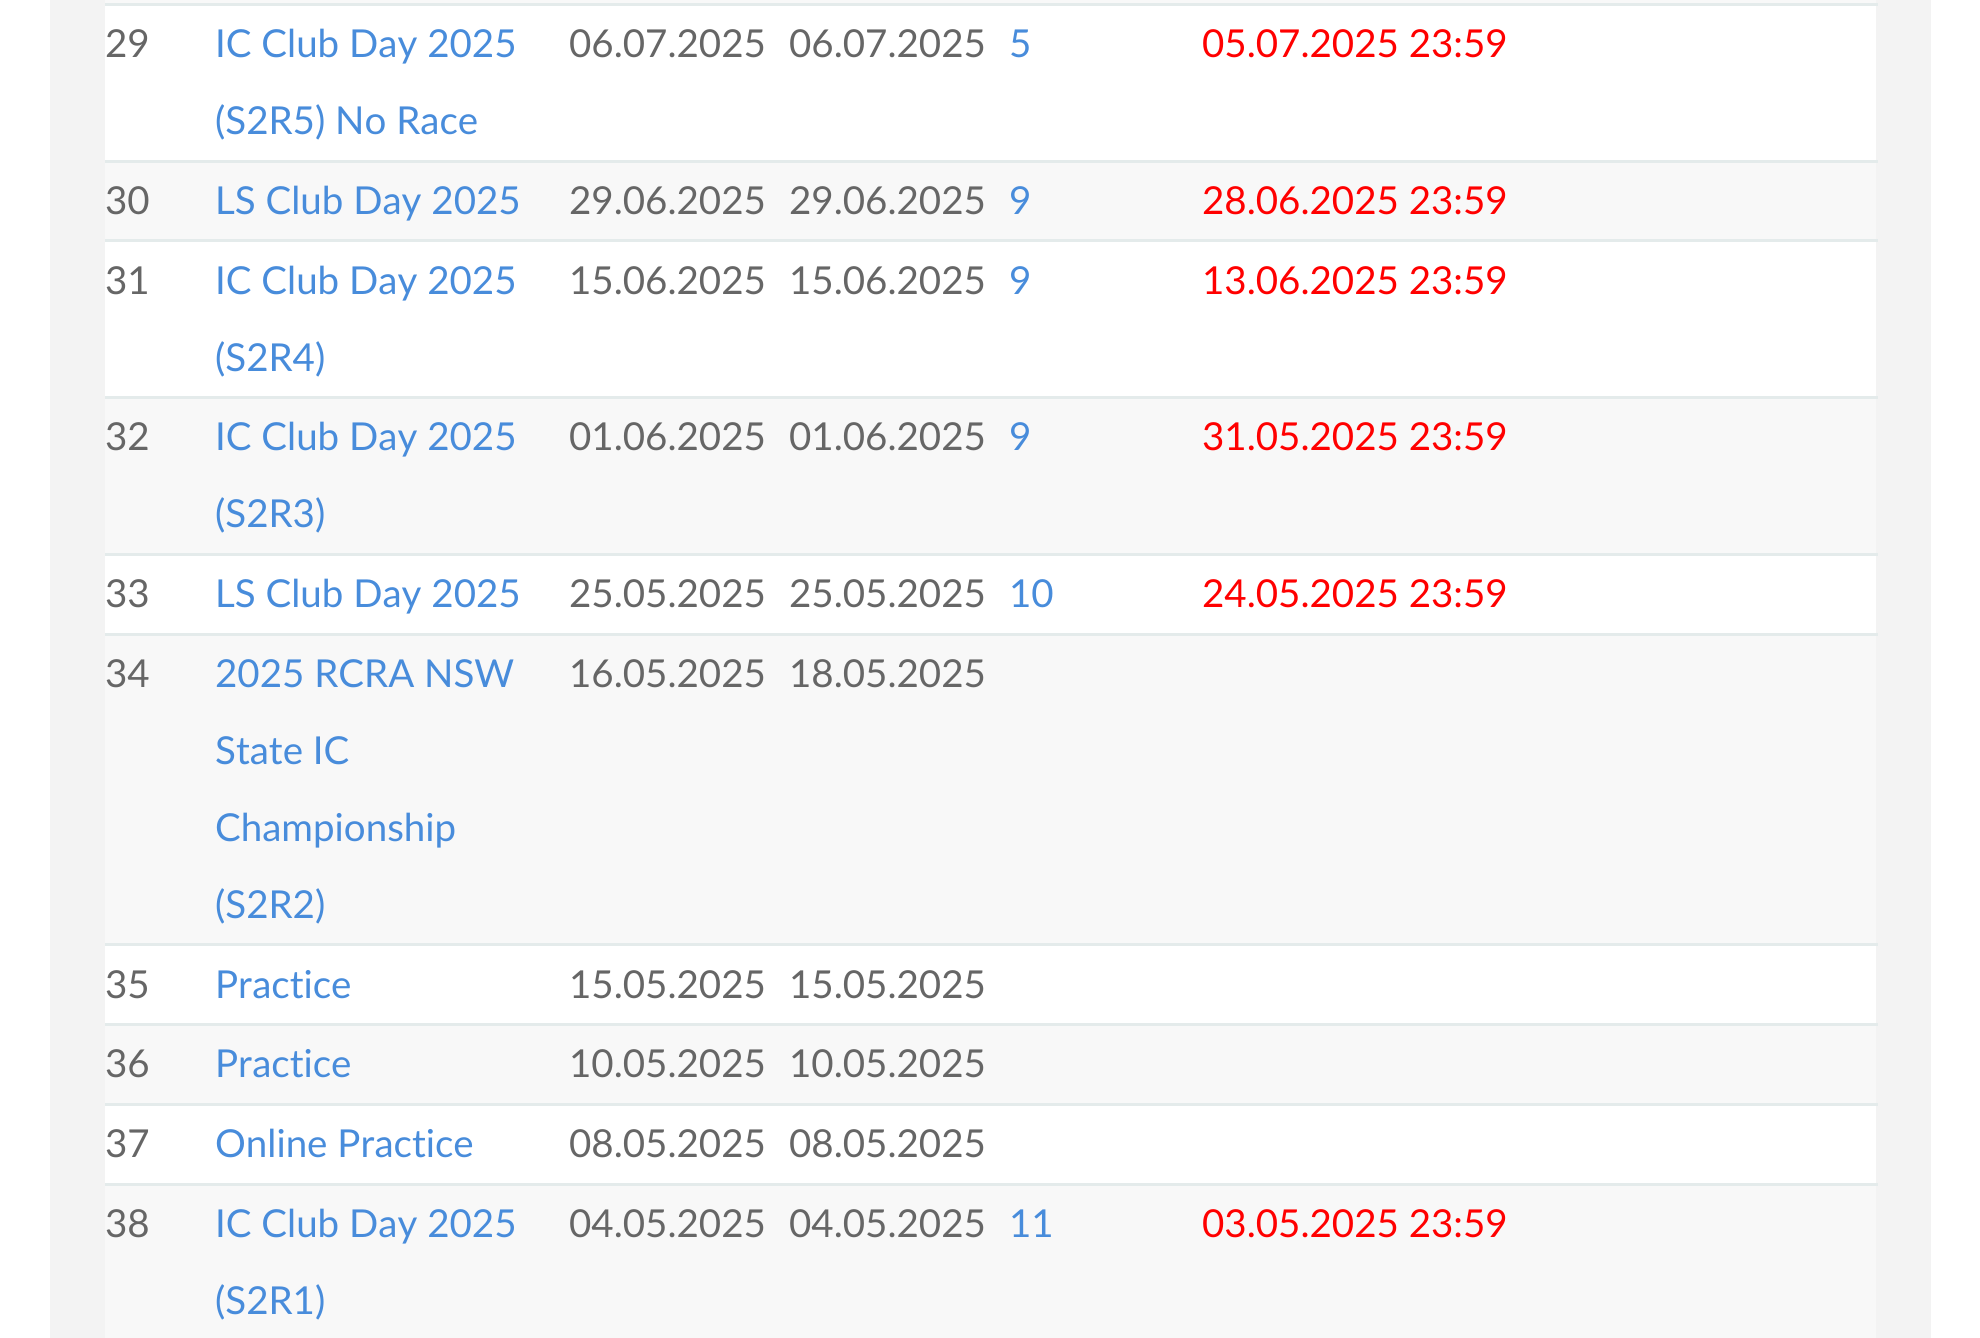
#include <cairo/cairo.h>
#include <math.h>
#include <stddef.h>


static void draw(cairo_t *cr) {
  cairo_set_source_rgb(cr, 1, 1, 1);
  cairo_paint(cr);
  cairo_set_source_rgb(cr, 243 / 255.0, 243 / 255.0, 243 / 255.0);
  cairo_rectangle(cr, 50, 0, 1881, 1338);
  cairo_fill(cr);
  cairo_set_source_rgb(cr, 1, 1, 1);
  cairo_rectangle(cr, 105, 6, 1771, 1177);
  cairo_fill(cr);
  cairo_set_source_rgb(cr, 248 / 255.0, 248 / 255.0, 248 / 255.0);
  cairo_rectangle(cr, 105, 0, 1771, 3);
  cairo_fill(cr);
  cairo_set_source_rgb(cr, 228 / 255.0, 235 / 255.0, 235 / 255.0);
  cairo_rectangle(cr, 105, 3, 1773, 3);
  cairo_fill(cr);
  cairo_rectangle(cr, 105, 160, 1773, 3);
  cairo_fill(cr);
  cairo_set_source_rgb(cr, 248 / 255.0, 248 / 255.0, 248 / 255.0);
  cairo_rectangle(cr, 105, 163, 1771, 76);
  cairo_fill(cr);
  cairo_set_source_rgb(cr, 228 / 255.0, 235 / 255.0, 235 / 255.0);
  cairo_rectangle(cr, 105, 239, 1773, 3);
  cairo_fill(cr);
  cairo_rectangle(cr, 105, 396, 1773, 3);
  cairo_fill(cr);
  cairo_set_source_rgb(cr, 248 / 255.0, 248 / 255.0, 248 / 255.0);
  cairo_rectangle(cr, 105, 399, 1771, 154);
  cairo_fill(cr);
  cairo_set_source_rgb(cr, 228 / 255.0, 235 / 255.0, 235 / 255.0);
  cairo_rectangle(cr, 105, 553, 1773, 3);
  cairo_fill(cr);
  cairo_rectangle(cr, 105, 633, 1773, 3);
  cairo_fill(cr);
  cairo_set_source_rgb(cr, 248 / 255.0, 248 / 255.0, 248 / 255.0);
  cairo_rectangle(cr, 105, 636, 1771, 307);
  cairo_fill(cr);
  cairo_set_source_rgb(cr, 228 / 255.0, 235 / 255.0, 235 / 255.0);
  cairo_rectangle(cr, 105, 943, 1773, 3);
  cairo_fill(cr);
  cairo_rectangle(cr, 105, 1023, 1773, 3);
  cairo_fill(cr);
  cairo_set_source_rgb(cr, 248 / 255.0, 248 / 255.0, 248 / 255.0);
  cairo_rectangle(cr, 105, 1026, 1771, 77);
  cairo_fill(cr);
  cairo_set_source_rgb(cr, 228 / 255.0, 235 / 255.0, 235 / 255.0);
  cairo_rectangle(cr, 105, 1103, 1773, 3);
  cairo_fill(cr);
  cairo_rectangle(cr, 105, 1183, 1773, 3);
  cairo_fill(cr);
  cairo_set_source_rgb(cr, 248 / 255.0, 248 / 255.0, 248 / 255.0);
  cairo_rectangle(cr, 105, 1186, 1771, 152);
  cairo_fill(cr);
  cairo_select_font_face(cr, "Lato", CAIRO_FONT_SLANT_NORMAL, CAIRO_FONT_WEIGHT_NORMAL);
  cairo_set_font_size(cr, 38.5);
  cairo_set_source_rgb(cr, 102 / 255.0, 102 / 255.0, 102 / 255.0);
  cairo_move_to(cr, 105, 57);
  cairo_show_text(cr, "29");
  cairo_set_source_rgb(cr, 72 / 255.0, 140 / 255.0, 219 / 255.0);
  cairo_move_to(cr, 215, 57);
  cairo_show_text(cr, "IC Club Day 2025");
  cairo_move_to(cr, 215, 134);
  cairo_show_text(cr, "(S2R5) No Race");
  cairo_set_source_rgb(cr, 102 / 255.0, 102 / 255.0, 102 / 255.0);
  cairo_move_to(cr, 569, 57);
  cairo_show_text(cr, "06.07.2025");
  cairo_move_to(cr, 789, 57);
  cairo_show_text(cr, "06.07.2025");
  cairo_set_source_rgb(cr, 72 / 255.0, 140 / 255.0, 219 / 255.0);
  cairo_move_to(cr, 1009, 57);
  cairo_show_text(cr, "5");
  cairo_set_source_rgb(cr, 1, 0, 0);
  cairo_move_to(cr, 1202, 57);
  cairo_show_text(cr, "05.07.2025 23:59");
  cairo_set_source_rgb(cr, 102 / 255.0, 102 / 255.0, 102 / 255.0);
  cairo_move_to(cr, 105, 214);
  cairo_show_text(cr, "30");
  cairo_set_source_rgb(cr, 72 / 255.0, 140 / 255.0, 219 / 255.0);
  cairo_move_to(cr, 215, 214);
  cairo_show_text(cr, "LS Club Day 2025");
  cairo_set_source_rgb(cr, 102 / 255.0, 102 / 255.0, 102 / 255.0);
  cairo_move_to(cr, 569, 214);
  cairo_show_text(cr, "29.06.2025");
  cairo_move_to(cr, 789, 214);
  cairo_show_text(cr, "29.06.2025");
  cairo_set_source_rgb(cr, 72 / 255.0, 140 / 255.0, 219 / 255.0);
  cairo_move_to(cr, 1009, 214);
  cairo_show_text(cr, "9");
  cairo_set_source_rgb(cr, 1, 0, 0);
  cairo_move_to(cr, 1202, 214);
  cairo_show_text(cr, "28.06.2025 23:59");
  cairo_set_source_rgb(cr, 102 / 255.0, 102 / 255.0, 102 / 255.0);
  cairo_move_to(cr, 105, 294);
  cairo_show_text(cr, "31");
  cairo_set_source_rgb(cr, 72 / 255.0, 140 / 255.0, 219 / 255.0);
  cairo_move_to(cr, 215, 294);
  cairo_show_text(cr, "IC Club Day 2025");
  cairo_move_to(cr, 215, 371);
  cairo_show_text(cr, "(S2R4)");
  cairo_set_source_rgb(cr, 102 / 255.0, 102 / 255.0, 102 / 255.0);
  cairo_move_to(cr, 569, 294);
  cairo_show_text(cr, "15.06.2025");
  cairo_move_to(cr, 789, 294);
  cairo_show_text(cr, "15.06.2025");
  cairo_set_source_rgb(cr, 72 / 255.0, 140 / 255.0, 219 / 255.0);
  cairo_move_to(cr, 1009, 294);
  cairo_show_text(cr, "9");
  cairo_set_source_rgb(cr, 1, 0, 0);
  cairo_move_to(cr, 1202, 294);
  cairo_show_text(cr, "13.06.2025 23:59");
  cairo_set_source_rgb(cr, 102 / 255.0, 102 / 255.0, 102 / 255.0);
  cairo_move_to(cr, 105, 450);
  cairo_show_text(cr, "32");
  cairo_set_source_rgb(cr, 72 / 255.0, 140 / 255.0, 219 / 255.0);
  cairo_move_to(cr, 215, 450);
  cairo_show_text(cr, "IC Club Day 2025");
  cairo_move_to(cr, 215, 527);
  cairo_show_text(cr, "(S2R3)");
  cairo_set_source_rgb(cr, 102 / 255.0, 102 / 255.0, 102 / 255.0);
  cairo_move_to(cr, 569, 450);
  cairo_show_text(cr, "01.06.2025");
  cairo_move_to(cr, 789, 450);
  cairo_show_text(cr, "01.06.2025");
  cairo_set_source_rgb(cr, 72 / 255.0, 140 / 255.0, 219 / 255.0);
  cairo_move_to(cr, 1009, 450);
  cairo_show_text(cr, "9");
  cairo_set_source_rgb(cr, 1, 0, 0);
  cairo_move_to(cr, 1202, 450);
  cairo_show_text(cr, "31.05.2025 23:59");
  cairo_set_source_rgb(cr, 102 / 255.0, 102 / 255.0, 102 / 255.0);
  cairo_move_to(cr, 105, 607);
  cairo_show_text(cr, "33");
  cairo_set_source_rgb(cr, 72 / 255.0, 140 / 255.0, 219 / 255.0);
  cairo_move_to(cr, 215, 607);
  cairo_show_text(cr, "LS Club Day 2025");
  cairo_set_source_rgb(cr, 102 / 255.0, 102 / 255.0, 102 / 255.0);
  cairo_move_to(cr, 569, 607);
  cairo_show_text(cr, "25.05.2025");
  cairo_move_to(cr, 789, 607);
  cairo_show_text(cr, "25.05.2025");
  cairo_set_source_rgb(cr, 72 / 255.0, 140 / 255.0, 219 / 255.0);
  cairo_move_to(cr, 1009, 607);
  cairo_show_text(cr, "10");
  cairo_set_source_rgb(cr, 1, 0, 0);
  cairo_move_to(cr, 1202, 607);
  cairo_show_text(cr, "24.05.2025 23:59");
  cairo_set_source_rgb(cr, 102 / 255.0, 102 / 255.0, 102 / 255.0);
  cairo_move_to(cr, 105, 687);
  cairo_show_text(cr, "34");
  cairo_set_source_rgb(cr, 72 / 255.0, 140 / 255.0, 219 / 255.0);
  cairo_move_to(cr, 215, 687);
  cairo_show_text(cr, "2025 RCRA NSW");
  cairo_move_to(cr, 215, 764);
  cairo_show_text(cr, "State IC");
  cairo_move_to(cr, 215, 841);
  cairo_show_text(cr, "Championship");
  cairo_move_to(cr, 215, 918);
  cairo_show_text(cr, "(S2R2)");
  cairo_set_source_rgb(cr, 102 / 255.0, 102 / 255.0, 102 / 255.0);
  cairo_move_to(cr, 569, 687);
  cairo_show_text(cr, "16.05.2025");
  cairo_move_to(cr, 789, 687);
  cairo_show_text(cr, "18.05.2025");
  cairo_move_to(cr, 105, 998);
  cairo_show_text(cr, "35");
  cairo_set_source_rgb(cr, 72 / 255.0, 140 / 255.0, 219 / 255.0);
  cairo_move_to(cr, 215, 998);
  cairo_show_text(cr, "Practice");
  cairo_set_source_rgb(cr, 102 / 255.0, 102 / 255.0, 102 / 255.0);
  cairo_move_to(cr, 569, 998);
  cairo_show_text(cr, "15.05.2025");
  cairo_move_to(cr, 789, 998);
  cairo_show_text(cr, "15.05.2025");
  cairo_move_to(cr, 105, 1077);
  cairo_show_text(cr, "36");
  cairo_set_source_rgb(cr, 72 / 255.0, 140 / 255.0, 219 / 255.0);
  cairo_move_to(cr, 215, 1077);
  cairo_show_text(cr, "Practice");
  cairo_set_source_rgb(cr, 102 / 255.0, 102 / 255.0, 102 / 255.0);
  cairo_move_to(cr, 569, 1077);
  cairo_show_text(cr, "10.05.2025");
  cairo_move_to(cr, 789, 1077);
  cairo_show_text(cr, "10.05.2025");
  cairo_move_to(cr, 105, 1157);
  cairo_show_text(cr, "37");
  cairo_set_source_rgb(cr, 72 / 255.0, 140 / 255.0, 219 / 255.0);
  cairo_move_to(cr, 215, 1157);
  cairo_show_text(cr, "Online Practice");
  cairo_set_source_rgb(cr, 102 / 255.0, 102 / 255.0, 102 / 255.0);
  cairo_move_to(cr, 569, 1157);
  cairo_show_text(cr, "08.05.2025");
  cairo_move_to(cr, 789, 1157);
  cairo_show_text(cr, "08.05.2025");
  cairo_move_to(cr, 105, 1237);
  cairo_show_text(cr, "38");
  cairo_set_source_rgb(cr, 72 / 255.0, 140 / 255.0, 219 / 255.0);
  cairo_move_to(cr, 215, 1237);
  cairo_show_text(cr, "IC Club Day 2025");
  cairo_move_to(cr, 215, 1314);
  cairo_show_text(cr, "(S2R1)");
  cairo_set_source_rgb(cr, 102 / 255.0, 102 / 255.0, 102 / 255.0);
  cairo_move_to(cr, 569, 1237);
  cairo_show_text(cr, "04.05.2025");
  cairo_move_to(cr, 789, 1237);
  cairo_show_text(cr, "04.05.2025");
  cairo_set_source_rgb(cr, 72 / 255.0, 140 / 255.0, 219 / 255.0);
  cairo_move_to(cr, 1009, 1237);
  cairo_show_text(cr, "11");
  cairo_set_source_rgb(cr, 1, 0, 0);
  cairo_move_to(cr, 1202, 1237);
  cairo_show_text(cr, "03.05.2025 23:59");
}

int main(void) {
  cairo_surface_t *surface = cairo_image_surface_create(CAIRO_FORMAT_RGB24, 1980, 1338);
  cairo_t *cr = cairo_create(surface);
  cairo_font_options_t *options = cairo_font_options_create();
  cairo_font_options_set_hint_metrics(options, CAIRO_HINT_METRICS_OFF);
  cairo_font_options_set_hint_style(options, CAIRO_HINT_STYLE_NONE);
  cairo_set_font_options(cr, options);
  cairo_set_miter_limit(cr, 4);
  draw(cr);
  cairo_surface_write_to_png(surface, "out.png");
  cairo_font_options_destroy(options);
  cairo_destroy(cr);
  cairo_surface_destroy(surface);
  return 0;
}
